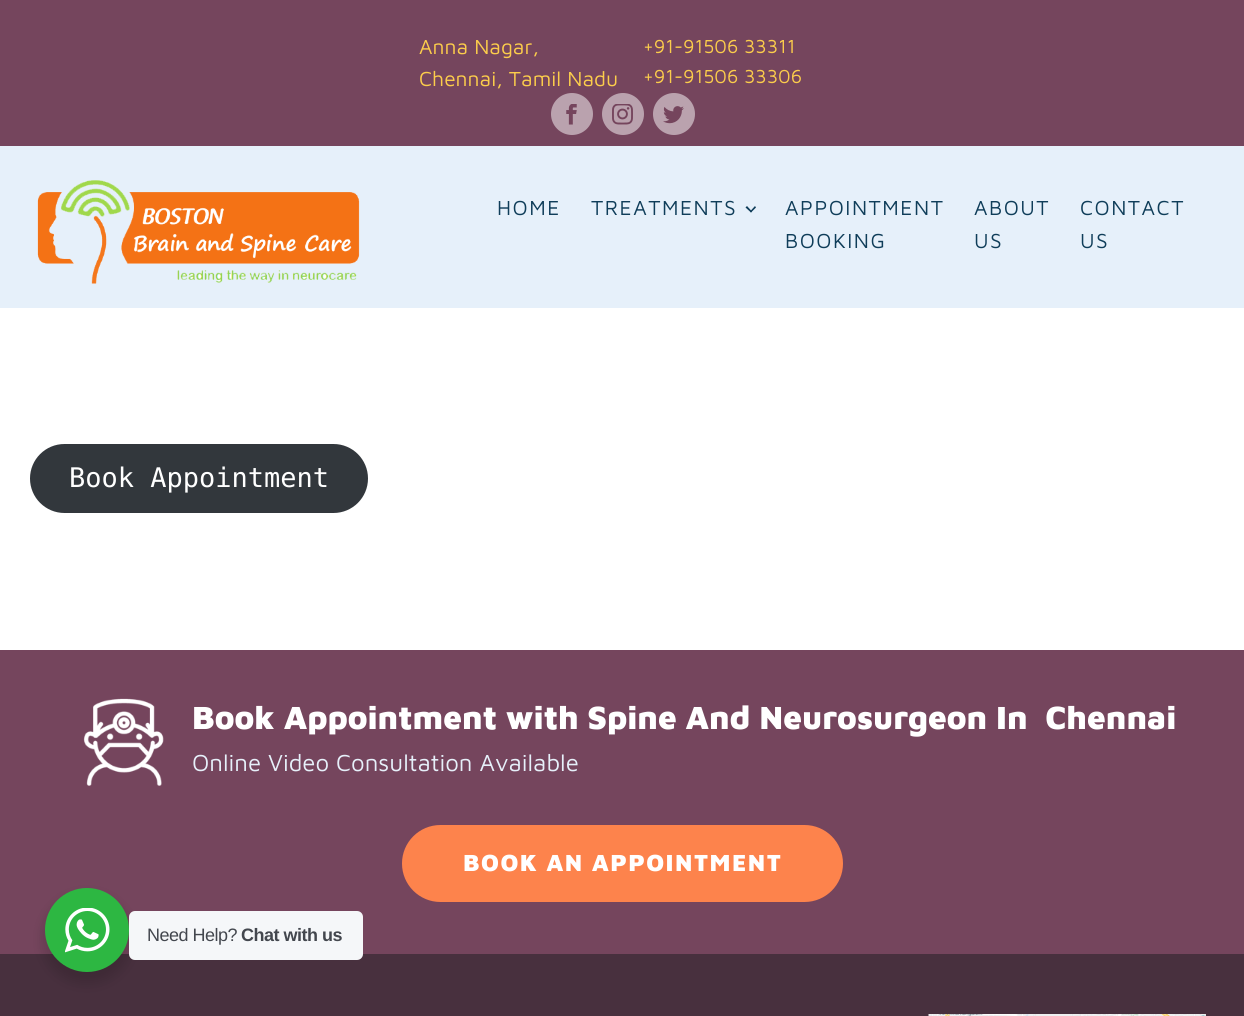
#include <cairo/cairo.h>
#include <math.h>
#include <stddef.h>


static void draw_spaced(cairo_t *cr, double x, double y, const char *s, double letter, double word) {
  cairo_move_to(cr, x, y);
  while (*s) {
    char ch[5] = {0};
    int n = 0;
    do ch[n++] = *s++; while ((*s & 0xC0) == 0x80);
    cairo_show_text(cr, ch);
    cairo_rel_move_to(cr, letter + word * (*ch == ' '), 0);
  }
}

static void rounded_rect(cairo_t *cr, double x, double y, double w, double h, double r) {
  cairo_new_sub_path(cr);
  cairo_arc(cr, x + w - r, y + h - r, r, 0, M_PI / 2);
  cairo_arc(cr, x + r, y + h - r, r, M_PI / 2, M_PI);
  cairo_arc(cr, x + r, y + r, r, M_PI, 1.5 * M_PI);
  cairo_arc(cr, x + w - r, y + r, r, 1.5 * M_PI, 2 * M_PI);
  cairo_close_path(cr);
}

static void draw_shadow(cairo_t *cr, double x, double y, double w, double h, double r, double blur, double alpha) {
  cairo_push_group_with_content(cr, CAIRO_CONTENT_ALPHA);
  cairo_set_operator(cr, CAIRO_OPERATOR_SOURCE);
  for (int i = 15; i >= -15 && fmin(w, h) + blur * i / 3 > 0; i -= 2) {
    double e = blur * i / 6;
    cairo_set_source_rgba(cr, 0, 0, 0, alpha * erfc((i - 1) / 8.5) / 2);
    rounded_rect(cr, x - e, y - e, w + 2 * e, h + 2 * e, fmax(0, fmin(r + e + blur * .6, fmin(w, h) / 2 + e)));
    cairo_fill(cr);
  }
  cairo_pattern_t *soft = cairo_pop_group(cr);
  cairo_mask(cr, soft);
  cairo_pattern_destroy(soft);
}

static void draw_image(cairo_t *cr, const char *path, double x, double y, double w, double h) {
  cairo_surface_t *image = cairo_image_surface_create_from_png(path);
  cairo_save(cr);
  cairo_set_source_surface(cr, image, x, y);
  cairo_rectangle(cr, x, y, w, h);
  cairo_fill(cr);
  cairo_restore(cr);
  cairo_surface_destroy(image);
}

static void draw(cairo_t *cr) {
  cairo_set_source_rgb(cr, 1, 1, 1);
  cairo_paint(cr);
  cairo_set_source_rgb(cr, 117 / 255.0, 69 / 255.0, 93 / 255.0);
  cairo_rectangle(cr, 0, 0, 1244, 146);
  cairo_fill(cr);
  cairo_set_source_rgb(cr, 186 / 255.0, 162 / 255.0, 174 / 255.0);
  cairo_arc(cr, 572, 114, 21, 0, 2 * M_PI);
  cairo_fill(cr);
  draw_image(cr, "images/1.png", 566, 104, 11, 21);
  cairo_arc(cr, 623, 114, 21, 0, 2 * M_PI);
  cairo_fill(cr);
  draw_image(cr, "images/2.png", 612, 104, 21, 21);
  cairo_arc(cr, 674, 114, 21, 0, 2 * M_PI);
  cairo_fill(cr);
  draw_image(cr, "images/3.png", 663, 106, 21, 18);
  cairo_set_source_rgb(cr, 230 / 255.0, 240 / 255.0, 250 / 255.0);
  cairo_rectangle(cr, 0, 146, 1244, 162);
  cairo_fill(cr);
  draw_image(cr, "images/4.png", 37, 180, 323, 104);
  cairo_set_source_rgb(cr, 15 / 255.0, 61 / 255.0, 89 / 255.0);
  cairo_new_path(cr);
  cairo_move_to(cr, 756, 207.5);
  cairo_line_to(cr, 751, 212.5);
  cairo_line_to(cr, 750, 211.5);
  cairo_line_to(cr, 755, 206);
  cairo_close_path(cr);
  cairo_fill(cr);
  cairo_new_path(cr);
  cairo_move_to(cr, 752, 211.5);
  cairo_line_to(cr, 751, 212.5);
  cairo_line_to(cr, 745.5, 207.5);
  cairo_line_to(cr, 747, 206);
  cairo_close_path(cr);
  cairo_fill(cr);
  cairo_set_source_rgb(cr, 50 / 255.0, 55 / 255.0, 60 / 255.0);
  rounded_rect(cr, 30, 444, 338, 69, 34.5);
  cairo_fill(cr);
  cairo_set_source_rgb(cr, 117 / 255.0, 69 / 255.0, 93 / 255.0);
  cairo_rectangle(cr, 0, 650, 1244, 304);
  cairo_fill(cr);
  draw_image(cr, "images/5.png", 83, 698, 81, 88);
  cairo_set_source_rgb(cr, 253 / 255.0, 131 / 255.0, 76 / 255.0);
  rounded_rect(cr, 403, 826, 439, 75, 37.5);
  cairo_fill_preserve(cr);
  cairo_stroke(cr);
  cairo_set_source_rgb(cr, 72 / 255.0, 48 / 255.0, 62 / 255.0);
  cairo_rectangle(cr, 0, 954, 1244, 62);
  cairo_fill(cr);
  cairo_set_source_rgb(cr, 0, 0, 0);
  draw_shadow(cr, 42, 894, 90, 90, 45, 6, 0.14);
  cairo_set_source_rgb(cr, 45 / 255.0, 183 / 255.0, 66 / 255.0);
  cairo_arc(cr, 87, 930, 42, 0, 2 * M_PI);
  cairo_fill(cr);
  draw_image(cr, "images/6.png", 65, 908, 45, 45);
  cairo_set_source_rgb(cr, 245 / 255.0, 247 / 255.0, 249 / 255.0);
  rounded_rect(cr, 129, 911, 234, 49, 6);
  cairo_fill(cr);
  draw_image(cr, "images/7.png", 928, 1014, 278, 2);
  cairo_select_font_face(cr, "Maven Pro", CAIRO_FONT_SLANT_NORMAL, CAIRO_FONT_WEIGHT_NORMAL);
  cairo_set_font_size(cr, 21);
  cairo_set_source_rgb(cr, 252 / 255.0, 205 / 255.0, 75 / 255.0);
  cairo_move_to(cr, 419, 54);
  cairo_show_text(cr, "Anna Nagar,");
  cairo_move_to(cr, 419, 86);
  cairo_show_text(cr, "Chennai, Tamil Nadu");
  cairo_set_font_size(cr, 19.5);
  cairo_move_to(cr, 643, 53);
  cairo_show_text(cr, "+91-91506 33311");
  cairo_move_to(cr, 643, 83);
  cairo_show_text(cr, "+91-91506 33306");
  cairo_set_font_size(cr, 21);
  cairo_set_source_rgb(cr, 15 / 255.0, 61 / 255.0, 89 / 255.0);
  draw_spaced(cr, 497, 215, "HOME", 1.5, 0);
  draw_spaced(cr, 591, 215, "TREATMENTS", 1.5, 0);
  draw_spaced(cr, 785, 215, "APPOINTMENT", 1.5, 0);
  draw_spaced(cr, 785, 248, "BOOKING", 1.5, 0);
  draw_spaced(cr, 974, 215, "ABOUT", 1.5, 0);
  draw_spaced(cr, 974, 248, "US", 1.5, 0);
  draw_spaced(cr, 1080, 215, "CONTACT", 1.5, 0);
  draw_spaced(cr, 1080, 248, "US", 1.5, 0);
  cairo_select_font_face(cr, "DejaVu Sans Mono", CAIRO_FONT_SLANT_NORMAL, CAIRO_FONT_WEIGHT_NORMAL);
  cairo_set_font_size(cr, 27);
  cairo_set_source_rgb(cr, 1, 1, 1);
  cairo_move_to(cr, 69, 487);
  cairo_show_text(cr, "Book Appointment");
  cairo_select_font_face(cr, "Maven Pro Black", CAIRO_FONT_SLANT_NORMAL, CAIRO_FONT_WEIGHT_NORMAL);
  cairo_set_font_size(cr, 33);
  cairo_move_to(cr, 192, 729);
  cairo_show_text(cr, "Book Appointment with Spine And Neurosurgeon In  Chennai");
  cairo_select_font_face(cr, "Maven Pro", CAIRO_FONT_SLANT_NORMAL, CAIRO_FONT_WEIGHT_NORMAL);
  cairo_set_font_size(cr, 24);
  cairo_set_source_rgb(cr, 230 / 255.0, 240 / 255.0, 250 / 255.0);
  cairo_move_to(cr, 192, 771);
  cairo_show_text(cr, "Online Video Consultation Available");
  cairo_select_font_face(cr, "Maven Pro Black", CAIRO_FONT_SLANT_NORMAL, CAIRO_FONT_WEIGHT_NORMAL);
  cairo_set_source_rgb(cr, 1, 1, 1);
  draw_spaced(cr, 463, 871, "BOOK AN APPOINTMENT", 1.5, 0);
  cairo_select_font_face(cr, "Liberation Sans", CAIRO_FONT_SLANT_NORMAL, CAIRO_FONT_WEIGHT_NORMAL);
  cairo_set_font_size(cr, 18);
  cairo_set_source_rgb(cr, 67 / 255.0, 71 / 255.0, 78 / 255.0);
  draw_spaced(cr, 147, 941, "Need Help?", -0.5, 0);
  cairo_select_font_face(cr, "Liberation Sans", CAIRO_FONT_SLANT_NORMAL, CAIRO_FONT_WEIGHT_BOLD);
  draw_spaced(cr, 241, 941, "Chat with us", -0.5, 0);
}

int main(void) {
  cairo_surface_t *surface = cairo_image_surface_create(CAIRO_FORMAT_RGB24, 1244, 1016);
  cairo_t *cr = cairo_create(surface);
  cairo_font_options_t *options = cairo_font_options_create();
  cairo_font_options_set_hint_metrics(options, CAIRO_HINT_METRICS_OFF);
  cairo_font_options_set_hint_style(options, CAIRO_HINT_STYLE_NONE);
  cairo_set_font_options(cr, options);
  cairo_set_miter_limit(cr, 4);
  draw(cr);
  cairo_surface_write_to_png(surface, "out.png");
  cairo_font_options_destroy(options);
  cairo_destroy(cr);
  cairo_surface_destroy(surface);
  return 0;
}
